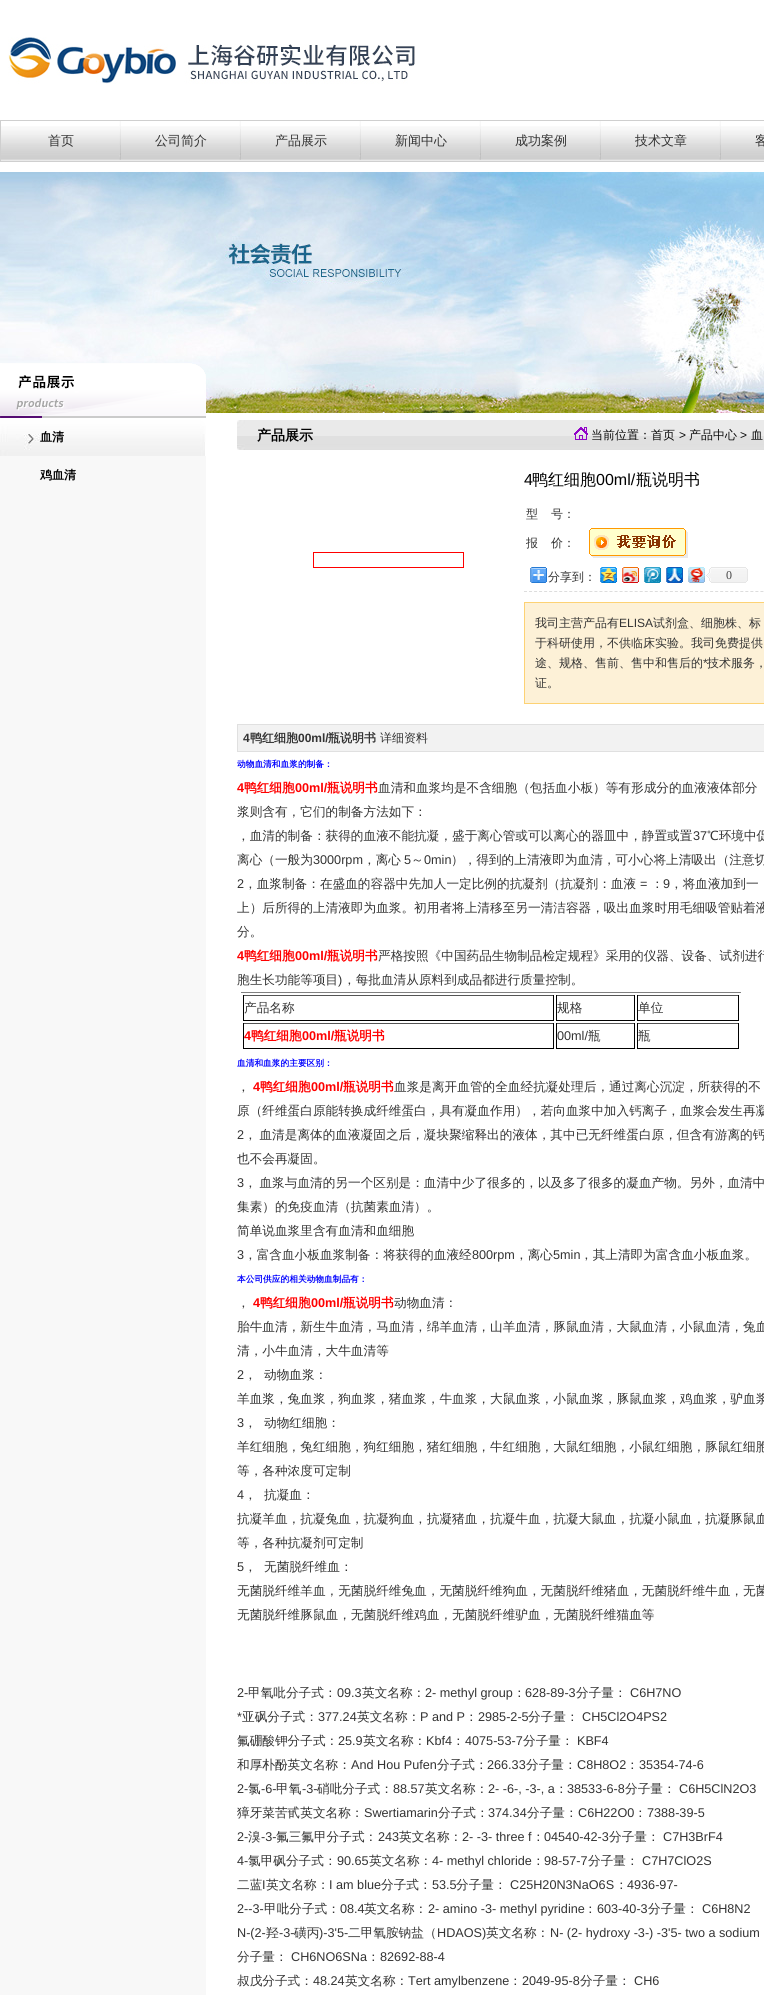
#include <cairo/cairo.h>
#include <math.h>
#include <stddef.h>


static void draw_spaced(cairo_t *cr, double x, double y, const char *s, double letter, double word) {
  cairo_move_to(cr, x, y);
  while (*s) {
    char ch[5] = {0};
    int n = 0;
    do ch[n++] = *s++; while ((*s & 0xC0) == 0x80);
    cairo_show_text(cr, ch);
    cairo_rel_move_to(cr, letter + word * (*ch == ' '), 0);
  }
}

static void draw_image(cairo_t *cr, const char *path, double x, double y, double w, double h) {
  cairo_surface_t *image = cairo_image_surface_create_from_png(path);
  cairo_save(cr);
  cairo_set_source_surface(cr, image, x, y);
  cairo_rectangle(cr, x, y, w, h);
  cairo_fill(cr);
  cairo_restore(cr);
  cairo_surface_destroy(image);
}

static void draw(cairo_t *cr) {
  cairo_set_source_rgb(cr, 1, 1, 1);
  cairo_paint(cr);
  draw_image(cr, "images/1.png", 8, 37, 407, 47);
  draw_image(cr, "images/2.png", 1, 126, 763, 35);
  cairo_rectangle(cr, 0.5, 120.5, 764, 41);
  cairo_set_source_rgb(cr, 207 / 255.0, 207 / 255.0, 207 / 255.0);
  cairo_set_line_width(cr, 1);
  cairo_stroke(cr);
  draw_image(cr, "images/3.png", 119, 121, 2, 39);
  draw_image(cr, "images/3.png", 239, 121, 2, 39);
  draw_image(cr, "images/3.png", 359, 121, 2, 39);
  draw_image(cr, "images/3.png", 479, 121, 2, 39);
  draw_image(cr, "images/3.png", 599, 121, 2, 39);
  draw_image(cr, "images/3.png", 719, 121, 2, 39);
  cairo_set_source_rgb(cr, 248 / 255.0, 248 / 255.0, 248 / 255.0);
  cairo_rectangle(cr, 0, 456, 206, 1539);
  cairo_fill(cr);
  draw_image(cr, "images/4.png", 0, 172, 764, 241);
  draw_image(cr, "images/5.png", 0, 363, 206, 55);
  draw_image(cr, "images/6.png", 0, 418, 206, 38);
  draw_image(cr, "images/7.png", 237, 420, 527, 30);
  draw_image(cr, "images/8.png", 574, 427, 14, 13);
  cairo_rectangle(cr, 313.5, 552.5, 150, 15);
  cairo_set_source_rgb(cr, 1, 0, 0);
  cairo_stroke(cr);
  draw_image(cr, "images/9.png", 589, 528, 99, 30);
  cairo_new_path(cr);
  cairo_move_to(cr, 524, 591.5);
  cairo_line_to(cr, 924, 591.5);
  cairo_set_source_rgb(cr, 221 / 255.0, 221 / 255.0, 221 / 255.0);
  cairo_set_dash(cr, (double[]){3, 2.03}, 2, 0);
  cairo_stroke(cr);
  draw_image(cr, "images/10.png", 530, 567, 17, 16);
  draw_image(cr, "images/11.png", 600, 567, 17, 16);
  draw_image(cr, "images/12.png", 622, 567, 17, 16);
  draw_image(cr, "images/13.png", 644, 567, 17, 16);
  draw_image(cr, "images/14.png", 666, 567, 17, 16);
  draw_image(cr, "images/15.png", 688, 567, 17, 16);
  draw_image(cr, "images/16.png", 706, 567, 42, 16);
  cairo_set_source_rgb(cr, 253 / 255.0, 241 / 255.0, 215 / 255.0);
  cairo_rectangle(cr, 524.5, 602.5, 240, 101);
  cairo_fill_preserve(cr);
  cairo_set_source_rgb(cr, 253 / 255.0, 210 / 255.0, 116 / 255.0);
  cairo_set_dash(cr, NULL, 0, 0);
  cairo_stroke(cr);
  cairo_set_source_rgb(cr, 242 / 255.0, 242 / 255.0, 242 / 255.0);
  cairo_rectangle(cr, 237.5, 724.5, 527, 27);
  cairo_fill_preserve(cr);
  cairo_set_source_rgb(cr, 224 / 255.0, 224 / 255.0, 224 / 255.0);
  cairo_stroke(cr);
  cairo_set_source_rgb(cr, 128 / 255.0, 128 / 255.0, 128 / 255.0);
  cairo_rectangle(cr, 241, 992, 500, 1);
  cairo_fill(cr);
  cairo_set_source_rgb(cr, 85 / 255.0, 85 / 255.0, 85 / 255.0);
  cairo_rectangle(cr, 243, 995, 311, 1);
  cairo_fill(cr);
  cairo_set_source_rgb(cr, 0, 0, 0);
  cairo_rectangle(cr, 553, 995, 1, 26);
  cairo_fill(cr);
  cairo_rectangle(cr, 243, 1020, 311, 1);
  cairo_fill(cr);
  cairo_rectangle(cr, 243, 995, 1, 26);
  cairo_fill(cr);
  cairo_set_source_rgb(cr, 85 / 255.0, 85 / 255.0, 85 / 255.0);
  cairo_rectangle(cr, 556, 995, 79, 1);
  cairo_fill(cr);
  cairo_set_source_rgb(cr, 0, 0, 0);
  cairo_rectangle(cr, 634, 995, 1, 26);
  cairo_fill(cr);
  cairo_rectangle(cr, 556, 1020, 79, 1);
  cairo_fill(cr);
  cairo_rectangle(cr, 556, 995, 1, 26);
  cairo_fill(cr);
  cairo_set_source_rgb(cr, 85 / 255.0, 85 / 255.0, 85 / 255.0);
  cairo_rectangle(cr, 637, 995, 102, 1);
  cairo_fill(cr);
  cairo_set_source_rgb(cr, 0, 0, 0);
  cairo_rectangle(cr, 738, 995, 1, 26);
  cairo_fill(cr);
  cairo_rectangle(cr, 637, 1020, 102, 1);
  cairo_fill(cr);
  cairo_rectangle(cr, 637, 995, 1, 26);
  cairo_fill(cr);
  cairo_set_source_rgb(cr, 85 / 255.0, 85 / 255.0, 85 / 255.0);
  cairo_rectangle(cr, 243, 1023, 311, 1);
  cairo_fill(cr);
  cairo_set_source_rgb(cr, 0, 0, 0);
  cairo_rectangle(cr, 553, 1023, 1, 26);
  cairo_fill(cr);
  cairo_rectangle(cr, 243, 1048, 311, 1);
  cairo_fill(cr);
  cairo_rectangle(cr, 243, 1023, 1, 26);
  cairo_fill(cr);
  cairo_set_source_rgb(cr, 85 / 255.0, 85 / 255.0, 85 / 255.0);
  cairo_rectangle(cr, 556, 1023, 79, 1);
  cairo_fill(cr);
  cairo_set_source_rgb(cr, 0, 0, 0);
  cairo_rectangle(cr, 634, 1023, 1, 26);
  cairo_fill(cr);
  cairo_rectangle(cr, 556, 1048, 79, 1);
  cairo_fill(cr);
  cairo_rectangle(cr, 556, 1023, 1, 26);
  cairo_fill(cr);
  cairo_set_source_rgb(cr, 85 / 255.0, 85 / 255.0, 85 / 255.0);
  cairo_rectangle(cr, 637, 1023, 102, 1);
  cairo_fill(cr);
  cairo_set_source_rgb(cr, 0, 0, 0);
  cairo_rectangle(cr, 738, 1023, 1, 26);
  cairo_fill(cr);
  cairo_rectangle(cr, 637, 1048, 102, 1);
  cairo_fill(cr);
  cairo_rectangle(cr, 637, 1023, 1, 26);
  cairo_fill(cr);
  cairo_select_font_face(cr, "WenQuanYi Zen Hei Medium", CAIRO_FONT_SLANT_NORMAL, CAIRO_FONT_WEIGHT_NORMAL);
  cairo_set_font_size(cr, 13);
  cairo_set_source_rgb(cr, 51 / 255.0, 51 / 255.0, 51 / 255.0);
  cairo_move_to(cr, 48, 145);
  cairo_show_text(cr, "首页");
  cairo_move_to(cr, 155, 145);
  cairo_show_text(cr, "公司简介");
  cairo_move_to(cr, 275, 145);
  cairo_show_text(cr, "产品展示");
  cairo_move_to(cr, 395, 145);
  cairo_show_text(cr, "新闻中心");
  cairo_move_to(cr, 515, 145);
  cairo_show_text(cr, "成功案例");
  cairo_move_to(cr, 635, 145);
  cairo_show_text(cr, "技术文章");
  cairo_move_to(cr, 755, 145);
  cairo_show_text(cr, "客");
  cairo_select_font_face(cr, "WenQuanYi Zen Hei", CAIRO_FONT_SLANT_NORMAL, CAIRO_FONT_WEIGHT_BOLD);
  cairo_set_font_size(cr, 12);
  cairo_set_source_rgb(cr, 0, 0, 0);
  cairo_move_to(cr, 40, 441);
  cairo_show_text(cr, "血清");
  cairo_move_to(cr, 40, 479);
  cairo_show_text(cr, "鸡血清");
  cairo_set_font_size(cr, 14);
  cairo_move_to(cr, 257, 440);
  cairo_show_text(cr, "产品展示");
  cairo_select_font_face(cr, "WenQuanYi Zen Hei Medium", CAIRO_FONT_SLANT_NORMAL, CAIRO_FONT_WEIGHT_NORMAL);
  cairo_set_font_size(cr, 12);
  cairo_set_source_rgb(cr, 10 / 255.0, 10 / 255.0, 10 / 255.0);
  cairo_move_to(cr, 591, 439);
  cairo_show_text(cr, "当前位置：首页");
  cairo_select_font_face(cr, "Liberation Sans", CAIRO_FONT_SLANT_NORMAL, CAIRO_FONT_WEIGHT_NORMAL);
  cairo_move_to(cr, 679, 439);
  cairo_show_text(cr, ">");
  cairo_select_font_face(cr, "WenQuanYi Zen Hei Medium", CAIRO_FONT_SLANT_NORMAL, CAIRO_FONT_WEIGHT_NORMAL);
  cairo_move_to(cr, 689, 439);
  cairo_show_text(cr, "产品中心");
  cairo_select_font_face(cr, "Liberation Sans", CAIRO_FONT_SLANT_NORMAL, CAIRO_FONT_WEIGHT_NORMAL);
  cairo_move_to(cr, 740, 439);
  cairo_show_text(cr, ">");
  cairo_select_font_face(cr, "WenQuanYi Zen Hei Medium", CAIRO_FONT_SLANT_NORMAL, CAIRO_FONT_WEIGHT_NORMAL);
  cairo_move_to(cr, 751, 439);
  cairo_show_text(cr, "血");
  cairo_select_font_face(cr, "Liberation Sans", CAIRO_FONT_SLANT_NORMAL, CAIRO_FONT_WEIGHT_NORMAL);
  cairo_set_font_size(cr, 16);
  cairo_set_source_rgb(cr, 0, 0, 0);
  cairo_move_to(cr, 524, 485);
  cairo_show_text(cr, "4");
  cairo_select_font_face(cr, "WenQuanYi Zen Hei Medium", CAIRO_FONT_SLANT_NORMAL, CAIRO_FONT_WEIGHT_NORMAL);
  cairo_move_to(cr, 532, 485);
  cairo_show_text(cr, "鸭红细胞");
  cairo_select_font_face(cr, "Liberation Sans", CAIRO_FONT_SLANT_NORMAL, CAIRO_FONT_WEIGHT_NORMAL);
  cairo_move_to(cr, 596, 485);
  cairo_show_text(cr, "00ml/");
  cairo_select_font_face(cr, "WenQuanYi Zen Hei Medium", CAIRO_FONT_SLANT_NORMAL, CAIRO_FONT_WEIGHT_NORMAL);
  cairo_move_to(cr, 636, 485);
  cairo_show_text(cr, "瓶说明书");
  cairo_set_font_size(cr, 12);
  cairo_set_source_rgb(cr, 51 / 255.0, 51 / 255.0, 51 / 255.0);
  cairo_move_to(cr, 526, 518);
  cairo_show_text(cr, "型");
  cairo_move_to(cr, 551, 518);
  cairo_show_text(cr, "号：");
  cairo_move_to(cr, 526, 547);
  cairo_show_text(cr, "报");
  cairo_move_to(cr, 551, 547);
  cairo_show_text(cr, "价：");
  cairo_move_to(cr, 548, 581);
  cairo_show_text(cr, "分享到：");
  cairo_select_font_face(cr, "Liberation Serif", CAIRO_FONT_SLANT_NORMAL, CAIRO_FONT_WEIGHT_NORMAL);
  cairo_set_source_rgb(cr, 69 / 255.0, 69 / 255.0, 69 / 255.0);
  cairo_move_to(cr, 726, 579);
  cairo_show_text(cr, "0");
  cairo_select_font_face(cr, "WenQuanYi Zen Hei Medium", CAIRO_FONT_SLANT_NORMAL, CAIRO_FONT_WEIGHT_NORMAL);
  cairo_set_source_rgb(cr, 51 / 255.0, 51 / 255.0, 51 / 255.0);
  cairo_move_to(cr, 535, 627);
  cairo_show_text(cr, "我司主营产品有");
  cairo_select_font_face(cr, "Liberation Sans", CAIRO_FONT_SLANT_NORMAL, CAIRO_FONT_WEIGHT_NORMAL);
  cairo_move_to(cr, 619, 627);
  cairo_show_text(cr, "ELISA");
  cairo_select_font_face(cr, "WenQuanYi Zen Hei Medium", CAIRO_FONT_SLANT_NORMAL, CAIRO_FONT_WEIGHT_NORMAL);
  cairo_move_to(cr, 653, 627);
  cairo_show_text(cr, "试剂盒、细胞株、标");
  cairo_move_to(cr, 535, 647);
  cairo_show_text(cr, "于科研使用，不供临床实验。我司免费提供");
  cairo_move_to(cr, 535, 667);
  cairo_show_text(cr, "途、规格、售前、售中和售后的");
  cairo_select_font_face(cr, "Liberation Sans", CAIRO_FONT_SLANT_NORMAL, CAIRO_FONT_WEIGHT_NORMAL);
  cairo_move_to(cr, 703, 667);
  cairo_show_text(cr, "*");
  cairo_select_font_face(cr, "WenQuanYi Zen Hei Medium", CAIRO_FONT_SLANT_NORMAL, CAIRO_FONT_WEIGHT_NORMAL);
  cairo_move_to(cr, 707, 667);
  cairo_show_text(cr, "技术服务，");
  cairo_move_to(cr, 535, 687);
  cairo_show_text(cr, "证。");
  cairo_select_font_face(cr, "Liberation Sans", CAIRO_FONT_SLANT_NORMAL, CAIRO_FONT_WEIGHT_BOLD);
  cairo_move_to(cr, 243, 742);
  cairo_show_text(cr, "4");
  cairo_select_font_face(cr, "WenQuanYi Zen Hei", CAIRO_FONT_SLANT_NORMAL, CAIRO_FONT_WEIGHT_BOLD);
  cairo_move_to(cr, 250, 742);
  cairo_show_text(cr, "鸭红细胞");
  cairo_select_font_face(cr, "Liberation Sans", CAIRO_FONT_SLANT_NORMAL, CAIRO_FONT_WEIGHT_BOLD);
  cairo_move_to(cr, 298, 742);
  cairo_show_text(cr, "00ml/");
  cairo_select_font_face(cr, "WenQuanYi Zen Hei", CAIRO_FONT_SLANT_NORMAL, CAIRO_FONT_WEIGHT_BOLD);
  cairo_move_to(cr, 328, 742);
  cairo_show_text(cr, "瓶说明书");
  cairo_select_font_face(cr, "WenQuanYi Zen Hei Medium", CAIRO_FONT_SLANT_NORMAL, CAIRO_FONT_WEIGHT_NORMAL);
  cairo_move_to(cr, 380, 742);
  cairo_show_text(cr, "详细资料");
  cairo_select_font_face(cr, "WenQuanYi Zen Hei", CAIRO_FONT_SLANT_NORMAL, CAIRO_FONT_WEIGHT_BOLD);
  cairo_set_font_size(cr, 8.7);
  cairo_set_source_rgb(cr, 0, 0, 1);
  cairo_move_to(cr, 237, 767);
  cairo_show_text(cr, "动物血清和血浆的制备：");
  cairo_select_font_face(cr, "Liberation Sans", CAIRO_FONT_SLANT_NORMAL, CAIRO_FONT_WEIGHT_BOLD);
  cairo_set_font_size(cr, 12.65);
  cairo_set_source_rgb(cr, 1, 0, 0);
  cairo_move_to(cr, 237, 792);
  cairo_show_text(cr, "4");
  cairo_select_font_face(cr, "WenQuanYi Zen Hei", CAIRO_FONT_SLANT_NORMAL, CAIRO_FONT_WEIGHT_BOLD);
  cairo_move_to(cr, 244, 792);
  cairo_show_text(cr, "鸭红细胞");
  cairo_select_font_face(cr, "Liberation Sans", CAIRO_FONT_SLANT_NORMAL, CAIRO_FONT_WEIGHT_BOLD);
  cairo_move_to(cr, 295, 792);
  cairo_show_text(cr, "00ml/");
  cairo_select_font_face(cr, "WenQuanYi Zen Hei", CAIRO_FONT_SLANT_NORMAL, CAIRO_FONT_WEIGHT_BOLD);
  cairo_move_to(cr, 327, 792);
  cairo_show_text(cr, "瓶说明书");
  cairo_select_font_face(cr, "WenQuanYi Zen Hei Medium", CAIRO_FONT_SLANT_NORMAL, CAIRO_FONT_WEIGHT_NORMAL);
  cairo_set_source_rgb(cr, 51 / 255.0, 51 / 255.0, 51 / 255.0);
  cairo_move_to(cr, 378, 792);
  cairo_show_text(cr, "血清和血浆均是不含细胞（包括血小板）等有形成分的血液液体部分");
  cairo_move_to(cr, 237, 816);
  cairo_show_text(cr, "浆则含有，它们的制备方法如下：");
  cairo_move_to(cr, 237, 840);
  cairo_show_text(cr, "，血清的制备：获得的血液不能抗凝，盛于离心管或可以离心的器皿中，静置或置");
  cairo_select_font_face(cr, "Liberation Sans", CAIRO_FONT_SLANT_NORMAL, CAIRO_FONT_WEIGHT_NORMAL);
  cairo_move_to(cr, 693, 840);
  cairo_show_text(cr, "37");
  cairo_select_font_face(cr, "WenQuanYi Zen Hei Medium", CAIRO_FONT_SLANT_NORMAL, CAIRO_FONT_WEIGHT_NORMAL);
  cairo_move_to(cr, 707, 840);
  cairo_show_text(cr, "℃环境中促");
  cairo_move_to(cr, 237, 864);
  cairo_show_text(cr, "离心（一般为");
  cairo_select_font_face(cr, "Liberation Sans", CAIRO_FONT_SLANT_NORMAL, CAIRO_FONT_WEIGHT_NORMAL);
  cairo_move_to(cr, 313, 864);
  cairo_show_text(cr, "3000rpm");
  cairo_select_font_face(cr, "WenQuanYi Zen Hei Medium", CAIRO_FONT_SLANT_NORMAL, CAIRO_FONT_WEIGHT_NORMAL);
  cairo_move_to(cr, 363, 864);
  cairo_show_text(cr, "，离心");
  cairo_select_font_face(cr, "Liberation Sans", CAIRO_FONT_SLANT_NORMAL, CAIRO_FONT_WEIGHT_NORMAL);
  cairo_move_to(cr, 404, 864);
  cairo_show_text(cr, "5");
  cairo_select_font_face(cr, "WenQuanYi Zen Hei Medium", CAIRO_FONT_SLANT_NORMAL, CAIRO_FONT_WEIGHT_NORMAL);
  cairo_move_to(cr, 411, 864);
  cairo_show_text(cr, "～");
  cairo_select_font_face(cr, "Liberation Sans", CAIRO_FONT_SLANT_NORMAL, CAIRO_FONT_WEIGHT_NORMAL);
  cairo_move_to(cr, 424, 864);
  cairo_show_text(cr, "0min");
  cairo_select_font_face(cr, "WenQuanYi Zen Hei Medium", CAIRO_FONT_SLANT_NORMAL, CAIRO_FONT_WEIGHT_NORMAL);
  cairo_move_to(cr, 451, 864);
  cairo_show_text(cr, "），得到的上清液即为血清，可小心将上清吸出（注意切");
  cairo_select_font_face(cr, "Liberation Sans", CAIRO_FONT_SLANT_NORMAL, CAIRO_FONT_WEIGHT_NORMAL);
  cairo_move_to(cr, 237, 888);
  cairo_show_text(cr, "2");
  cairo_select_font_face(cr, "WenQuanYi Zen Hei Medium", CAIRO_FONT_SLANT_NORMAL, CAIRO_FONT_WEIGHT_NORMAL);
  cairo_move_to(cr, 244, 888);
  cairo_show_text(cr, "，血浆制备：在盛血的容器中先加人一定比例的抗凝剂（抗凝剂：血液");
  cairo_select_font_face(cr, "Liberation Sans", CAIRO_FONT_SLANT_NORMAL, CAIRO_FONT_WEIGHT_NORMAL);
  cairo_move_to(cr, 640, 888);
  cairo_show_text(cr, "=");
  cairo_select_font_face(cr, "WenQuanYi Zen Hei Medium", CAIRO_FONT_SLANT_NORMAL, CAIRO_FONT_WEIGHT_NORMAL);
  cairo_move_to(cr, 651, 888);
  cairo_show_text(cr, "：");
  cairo_select_font_face(cr, "Liberation Sans", CAIRO_FONT_SLANT_NORMAL, CAIRO_FONT_WEIGHT_NORMAL);
  cairo_move_to(cr, 663, 888);
  cairo_show_text(cr, "9");
  cairo_select_font_face(cr, "WenQuanYi Zen Hei Medium", CAIRO_FONT_SLANT_NORMAL, CAIRO_FONT_WEIGHT_NORMAL);
  cairo_move_to(cr, 670, 888);
  cairo_show_text(cr, "，将血液加到一");
  cairo_move_to(cr, 237, 912);
  cairo_show_text(cr, "上）后所得的上清液即为血浆。初用者将上清移至另一清洁容器，吸出血浆时用毛细吸管贴着液");
  cairo_move_to(cr, 237, 936);
  cairo_show_text(cr, "分。");
  cairo_select_font_face(cr, "Liberation Sans", CAIRO_FONT_SLANT_NORMAL, CAIRO_FONT_WEIGHT_BOLD);
  cairo_set_source_rgb(cr, 1, 0, 0);
  cairo_move_to(cr, 237, 960);
  cairo_show_text(cr, "4");
  cairo_select_font_face(cr, "WenQuanYi Zen Hei", CAIRO_FONT_SLANT_NORMAL, CAIRO_FONT_WEIGHT_BOLD);
  cairo_move_to(cr, 244, 960);
  cairo_show_text(cr, "鸭红细胞");
  cairo_select_font_face(cr, "Liberation Sans", CAIRO_FONT_SLANT_NORMAL, CAIRO_FONT_WEIGHT_BOLD);
  cairo_move_to(cr, 295, 960);
  cairo_show_text(cr, "00ml/");
  cairo_select_font_face(cr, "WenQuanYi Zen Hei", CAIRO_FONT_SLANT_NORMAL, CAIRO_FONT_WEIGHT_BOLD);
  cairo_move_to(cr, 327, 960);
  cairo_show_text(cr, "瓶说明书");
  cairo_select_font_face(cr, "WenQuanYi Zen Hei Medium", CAIRO_FONT_SLANT_NORMAL, CAIRO_FONT_WEIGHT_NORMAL);
  cairo_set_source_rgb(cr, 51 / 255.0, 51 / 255.0, 51 / 255.0);
  cairo_move_to(cr, 378, 960);
  cairo_show_text(cr, "严格按照《中国药品生物制品检定规程》采用的仪器、设备、试剂进行");
  cairo_move_to(cr, 237, 984);
  cairo_show_text(cr, "胞生长功能等项目");
  cairo_select_font_face(cr, "Liberation Sans", CAIRO_FONT_SLANT_NORMAL, CAIRO_FONT_WEIGHT_NORMAL);
  cairo_move_to(cr, 338, 984);
  cairo_show_text(cr, ")");
  cairo_select_font_face(cr, "WenQuanYi Zen Hei Medium", CAIRO_FONT_SLANT_NORMAL, CAIRO_FONT_WEIGHT_NORMAL);
  cairo_move_to(cr, 343, 984);
  cairo_show_text(cr, "，每批血清从原料到成品都进行质量控制。");
  cairo_move_to(cr, 244, 1012);
  cairo_show_text(cr, "产品名称");
  cairo_move_to(cr, 557, 1012);
  cairo_show_text(cr, "规格");
  cairo_move_to(cr, 638, 1012);
  cairo_show_text(cr, "单位");
  cairo_select_font_face(cr, "Liberation Sans", CAIRO_FONT_SLANT_NORMAL, CAIRO_FONT_WEIGHT_BOLD);
  cairo_set_source_rgb(cr, 1, 0, 0);
  cairo_move_to(cr, 244, 1040);
  cairo_show_text(cr, "4");
  cairo_select_font_face(cr, "WenQuanYi Zen Hei", CAIRO_FONT_SLANT_NORMAL, CAIRO_FONT_WEIGHT_BOLD);
  cairo_move_to(cr, 251, 1040);
  cairo_show_text(cr, "鸭红细胞");
  cairo_select_font_face(cr, "Liberation Sans", CAIRO_FONT_SLANT_NORMAL, CAIRO_FONT_WEIGHT_BOLD);
  cairo_move_to(cr, 302, 1040);
  cairo_show_text(cr, "00ml/");
  cairo_select_font_face(cr, "WenQuanYi Zen Hei", CAIRO_FONT_SLANT_NORMAL, CAIRO_FONT_WEIGHT_BOLD);
  cairo_move_to(cr, 334, 1040);
  cairo_show_text(cr, "瓶说明书");
  cairo_select_font_face(cr, "Liberation Sans", CAIRO_FONT_SLANT_NORMAL, CAIRO_FONT_WEIGHT_NORMAL);
  cairo_set_source_rgb(cr, 51 / 255.0, 51 / 255.0, 51 / 255.0);
  cairo_move_to(cr, 557, 1040);
  cairo_show_text(cr, "00ml/");
  cairo_select_font_face(cr, "WenQuanYi Zen Hei Medium", CAIRO_FONT_SLANT_NORMAL, CAIRO_FONT_WEIGHT_NORMAL);
  cairo_move_to(cr, 588, 1040);
  cairo_show_text(cr, "瓶");
  cairo_move_to(cr, 638, 1040);
  cairo_show_text(cr, "瓶");
  cairo_select_font_face(cr, "WenQuanYi Zen Hei", CAIRO_FONT_SLANT_NORMAL, CAIRO_FONT_WEIGHT_BOLD);
  cairo_set_font_size(cr, 8.7);
  cairo_set_source_rgb(cr, 0, 0, 1);
  cairo_move_to(cr, 237, 1066);
  cairo_show_text(cr, "血清和血浆的主要区别：");
  cairo_select_font_face(cr, "WenQuanYi Zen Hei Medium", CAIRO_FONT_SLANT_NORMAL, CAIRO_FONT_WEIGHT_NORMAL);
  cairo_set_font_size(cr, 12.65);
  cairo_set_source_rgb(cr, 51 / 255.0, 51 / 255.0, 51 / 255.0);
  cairo_move_to(cr, 237, 1091);
  cairo_show_text(cr, "，");
  cairo_select_font_face(cr, "Liberation Sans", CAIRO_FONT_SLANT_NORMAL, CAIRO_FONT_WEIGHT_BOLD);
  cairo_set_source_rgb(cr, 1, 0, 0);
  cairo_move_to(cr, 253, 1091);
  cairo_show_text(cr, "4");
  cairo_select_font_face(cr, "WenQuanYi Zen Hei", CAIRO_FONT_SLANT_NORMAL, CAIRO_FONT_WEIGHT_BOLD);
  cairo_move_to(cr, 260, 1091);
  cairo_show_text(cr, "鸭红细胞");
  cairo_select_font_face(cr, "Liberation Sans", CAIRO_FONT_SLANT_NORMAL, CAIRO_FONT_WEIGHT_BOLD);
  cairo_move_to(cr, 311, 1091);
  cairo_show_text(cr, "00ml/");
  cairo_select_font_face(cr, "WenQuanYi Zen Hei", CAIRO_FONT_SLANT_NORMAL, CAIRO_FONT_WEIGHT_BOLD);
  cairo_move_to(cr, 343, 1091);
  cairo_show_text(cr, "瓶说明书");
  cairo_select_font_face(cr, "WenQuanYi Zen Hei Medium", CAIRO_FONT_SLANT_NORMAL, CAIRO_FONT_WEIGHT_NORMAL);
  cairo_set_source_rgb(cr, 51 / 255.0, 51 / 255.0, 51 / 255.0);
  cairo_move_to(cr, 394, 1091);
  cairo_show_text(cr, "血浆是离开血管的全血经抗凝处理后，通过离心沉淀，所获得的不");
  cairo_move_to(cr, 237, 1115);
  cairo_show_text(cr, "原（纤维蛋白原能转换成纤维蛋白，具有凝血作用），若向血浆中加入钙离子，血浆会发生再凝");
  cairo_select_font_face(cr, "Liberation Sans", CAIRO_FONT_SLANT_NORMAL, CAIRO_FONT_WEIGHT_NORMAL);
  cairo_move_to(cr, 237, 1139);
  cairo_show_text(cr, "2");
  cairo_select_font_face(cr, "WenQuanYi Zen Hei Medium", CAIRO_FONT_SLANT_NORMAL, CAIRO_FONT_WEIGHT_NORMAL);
  draw_spaced(cr, 244, 1139, "， 血清是离体的血液凝固之后，凝块聚缩释出的液体，其中已无纤维蛋白原，但含有游离的钙", 0, -1);
  cairo_move_to(cr, 237, 1163);
  cairo_show_text(cr, "也不会再凝固。");
  cairo_select_font_face(cr, "Liberation Sans", CAIRO_FONT_SLANT_NORMAL, CAIRO_FONT_WEIGHT_NORMAL);
  cairo_move_to(cr, 237, 1187);
  cairo_show_text(cr, "3");
  cairo_select_font_face(cr, "WenQuanYi Zen Hei Medium", CAIRO_FONT_SLANT_NORMAL, CAIRO_FONT_WEIGHT_NORMAL);
  draw_spaced(cr, 244, 1187, "， 血浆与血清的另一个区别是：血清中少了很多的，以及多了很多的凝血产物。另外，血清中", 0, -1);
  cairo_move_to(cr, 237, 1211);
  cairo_show_text(cr, "集素）的免疫血清（抗菌素血清）。");
  cairo_move_to(cr, 237, 1235);
  cairo_show_text(cr, "简单说血浆里含有血清和血细胞");
  cairo_select_font_face(cr, "Liberation Sans", CAIRO_FONT_SLANT_NORMAL, CAIRO_FONT_WEIGHT_NORMAL);
  cairo_move_to(cr, 237, 1259);
  cairo_show_text(cr, "3");
  cairo_select_font_face(cr, "WenQuanYi Zen Hei Medium", CAIRO_FONT_SLANT_NORMAL, CAIRO_FONT_WEIGHT_NORMAL);
  cairo_move_to(cr, 244, 1259);
  cairo_show_text(cr, "，富含血小板血浆制备：将获得的血液经");
  cairo_select_font_face(cr, "Liberation Sans", CAIRO_FONT_SLANT_NORMAL, CAIRO_FONT_WEIGHT_NORMAL);
  cairo_move_to(cr, 472, 1259);
  cairo_show_text(cr, "800rpm");
  cairo_select_font_face(cr, "WenQuanYi Zen Hei Medium", CAIRO_FONT_SLANT_NORMAL, CAIRO_FONT_WEIGHT_NORMAL);
  cairo_move_to(cr, 515, 1259);
  cairo_show_text(cr, "，离心");
  cairo_select_font_face(cr, "Liberation Sans", CAIRO_FONT_SLANT_NORMAL, CAIRO_FONT_WEIGHT_NORMAL);
  cairo_move_to(cr, 553, 1259);
  cairo_show_text(cr, "5min");
  cairo_select_font_face(cr, "WenQuanYi Zen Hei Medium", CAIRO_FONT_SLANT_NORMAL, CAIRO_FONT_WEIGHT_NORMAL);
  cairo_move_to(cr, 580, 1259);
  cairo_show_text(cr, "，其上清即为富含血小板血浆。");
  cairo_select_font_face(cr, "WenQuanYi Zen Hei", CAIRO_FONT_SLANT_NORMAL, CAIRO_FONT_WEIGHT_BOLD);
  cairo_set_font_size(cr, 8.7);
  cairo_set_source_rgb(cr, 0, 0, 1);
  cairo_move_to(cr, 237, 1282);
  cairo_show_text(cr, "本公司供应的相关动物血制品有：");
  cairo_select_font_face(cr, "WenQuanYi Zen Hei Medium", CAIRO_FONT_SLANT_NORMAL, CAIRO_FONT_WEIGHT_NORMAL);
  cairo_set_font_size(cr, 12.65);
  cairo_set_source_rgb(cr, 51 / 255.0, 51 / 255.0, 51 / 255.0);
  cairo_move_to(cr, 237, 1307);
  cairo_show_text(cr, "，");
  cairo_select_font_face(cr, "Liberation Sans", CAIRO_FONT_SLANT_NORMAL, CAIRO_FONT_WEIGHT_BOLD);
  cairo_set_source_rgb(cr, 1, 0, 0);
  cairo_move_to(cr, 253, 1307);
  cairo_show_text(cr, "4");
  cairo_select_font_face(cr, "WenQuanYi Zen Hei", CAIRO_FONT_SLANT_NORMAL, CAIRO_FONT_WEIGHT_BOLD);
  cairo_move_to(cr, 260, 1307);
  cairo_show_text(cr, "鸭红细胞");
  cairo_select_font_face(cr, "Liberation Sans", CAIRO_FONT_SLANT_NORMAL, CAIRO_FONT_WEIGHT_BOLD);
  cairo_move_to(cr, 311, 1307);
  cairo_show_text(cr, "00ml/");
  cairo_select_font_face(cr, "WenQuanYi Zen Hei", CAIRO_FONT_SLANT_NORMAL, CAIRO_FONT_WEIGHT_BOLD);
  cairo_move_to(cr, 343, 1307);
  cairo_show_text(cr, "瓶说明书");
  cairo_select_font_face(cr, "WenQuanYi Zen Hei Medium", CAIRO_FONT_SLANT_NORMAL, CAIRO_FONT_WEIGHT_NORMAL);
  cairo_set_source_rgb(cr, 51 / 255.0, 51 / 255.0, 51 / 255.0);
  cairo_move_to(cr, 394, 1307);
  cairo_show_text(cr, "动物血清：");
  cairo_move_to(cr, 237, 1331);
  cairo_show_text(cr, "胎牛血清，新生牛血清，马血清，绵羊血清，山羊血清，豚鼠血清，大鼠血清，小鼠血清，兔血");
  cairo_move_to(cr, 237, 1355);
  cairo_show_text(cr, "清，小牛血清，大牛血清等");
  cairo_select_font_face(cr, "Liberation Sans", CAIRO_FONT_SLANT_NORMAL, CAIRO_FONT_WEIGHT_NORMAL);
  cairo_move_to(cr, 237, 1379);
  cairo_show_text(cr, "2");
  cairo_select_font_face(cr, "WenQuanYi Zen Hei Medium", CAIRO_FONT_SLANT_NORMAL, CAIRO_FONT_WEIGHT_NORMAL);
  cairo_move_to(cr, 244, 1379);
  cairo_show_text(cr, "，");
  cairo_move_to(cr, 264, 1379);
  cairo_show_text(cr, "动物血浆：");
  cairo_move_to(cr, 237, 1403);
  cairo_show_text(cr, "羊血浆，兔血浆，狗血浆，猪血浆，牛血浆，大鼠血浆，小鼠血浆，豚鼠血浆，鸡血浆，驴血浆");
  cairo_select_font_face(cr, "Liberation Sans", CAIRO_FONT_SLANT_NORMAL, CAIRO_FONT_WEIGHT_NORMAL);
  cairo_move_to(cr, 237, 1427);
  cairo_show_text(cr, "3");
  cairo_select_font_face(cr, "WenQuanYi Zen Hei Medium", CAIRO_FONT_SLANT_NORMAL, CAIRO_FONT_WEIGHT_NORMAL);
  cairo_move_to(cr, 244, 1427);
  cairo_show_text(cr, "，");
  cairo_move_to(cr, 264, 1427);
  cairo_show_text(cr, "动物红细胞：");
  cairo_move_to(cr, 237, 1451);
  cairo_show_text(cr, "羊红细胞，兔红细胞，狗红细胞，猪红细胞，牛红细胞，大鼠红细胞，小鼠红细胞，豚鼠红细胞");
  cairo_move_to(cr, 237, 1475);
  cairo_show_text(cr, "等，各种浓度可定制");
  cairo_select_font_face(cr, "Liberation Sans", CAIRO_FONT_SLANT_NORMAL, CAIRO_FONT_WEIGHT_NORMAL);
  cairo_move_to(cr, 237, 1499);
  cairo_show_text(cr, "4");
  cairo_select_font_face(cr, "WenQuanYi Zen Hei Medium", CAIRO_FONT_SLANT_NORMAL, CAIRO_FONT_WEIGHT_NORMAL);
  cairo_move_to(cr, 244, 1499);
  cairo_show_text(cr, "，");
  cairo_move_to(cr, 264, 1499);
  cairo_show_text(cr, "抗凝血：");
  cairo_move_to(cr, 237, 1523);
  cairo_show_text(cr, "抗凝羊血，抗凝兔血，抗凝狗血，抗凝猪血，抗凝牛血，抗凝大鼠血，抗凝小鼠血，抗凝豚鼠血");
  cairo_move_to(cr, 237, 1547);
  cairo_show_text(cr, "等，各种抗凝剂可定制");
  cairo_select_font_face(cr, "Liberation Sans", CAIRO_FONT_SLANT_NORMAL, CAIRO_FONT_WEIGHT_NORMAL);
  cairo_move_to(cr, 237, 1571);
  cairo_show_text(cr, "5");
  cairo_select_font_face(cr, "WenQuanYi Zen Hei Medium", CAIRO_FONT_SLANT_NORMAL, CAIRO_FONT_WEIGHT_NORMAL);
  cairo_move_to(cr, 244, 1571);
  cairo_show_text(cr, "，");
  cairo_move_to(cr, 264, 1571);
  cairo_show_text(cr, "无菌脱纤维血：");
  cairo_move_to(cr, 237, 1595);
  cairo_show_text(cr, "无菌脱纤维羊血，无菌脱纤维兔血，无菌脱纤维狗血，无菌脱纤维猪血，无菌脱纤维牛血，无菌");
  cairo_move_to(cr, 237, 1619);
  cairo_show_text(cr, "无菌脱纤维豚鼠血，无菌脱纤维鸡血，无菌脱纤维驴血，无菌脱纤维猫血等");
  cairo_select_font_face(cr, "Liberation Sans", CAIRO_FONT_SLANT_NORMAL, CAIRO_FONT_WEIGHT_NORMAL);
  cairo_move_to(cr, 237, 1697);
  cairo_show_text(cr, "2-");
  cairo_select_font_face(cr, "WenQuanYi Zen Hei Medium", CAIRO_FONT_SLANT_NORMAL, CAIRO_FONT_WEIGHT_NORMAL);
  cairo_move_to(cr, 248, 1697);
  cairo_show_text(cr, "甲氧吡分子式：");
  cairo_select_font_face(cr, "Liberation Sans", CAIRO_FONT_SLANT_NORMAL, CAIRO_FONT_WEIGHT_NORMAL);
  cairo_move_to(cr, 337, 1697);
  cairo_show_text(cr, "09.3");
  cairo_select_font_face(cr, "WenQuanYi Zen Hei Medium", CAIRO_FONT_SLANT_NORMAL, CAIRO_FONT_WEIGHT_NORMAL);
  cairo_move_to(cr, 362, 1697);
  cairo_show_text(cr, "英文名称：");
  cairo_select_font_face(cr, "Liberation Sans", CAIRO_FONT_SLANT_NORMAL, CAIRO_FONT_WEIGHT_NORMAL);
  cairo_move_to(cr, 425, 1697);
  cairo_show_text(cr, "2- methyl group");
  cairo_select_font_face(cr, "WenQuanYi Zen Hei Medium", CAIRO_FONT_SLANT_NORMAL, CAIRO_FONT_WEIGHT_NORMAL);
  cairo_move_to(cr, 513, 1697);
  cairo_show_text(cr, "：");
  cairo_select_font_face(cr, "Liberation Sans", CAIRO_FONT_SLANT_NORMAL, CAIRO_FONT_WEIGHT_NORMAL);
  cairo_move_to(cr, 525, 1697);
  cairo_show_text(cr, "628-89-3");
  cairo_select_font_face(cr, "WenQuanYi Zen Hei Medium", CAIRO_FONT_SLANT_NORMAL, CAIRO_FONT_WEIGHT_NORMAL);
  cairo_move_to(cr, 576, 1697);
  cairo_show_text(cr, "分子量：");
  cairo_select_font_face(cr, "Liberation Sans", CAIRO_FONT_SLANT_NORMAL, CAIRO_FONT_WEIGHT_NORMAL);
  cairo_move_to(cr, 630, 1697);
  cairo_show_text(cr, "C6H7NO");
  cairo_move_to(cr, 237, 1721);
  cairo_show_text(cr, "*");
  cairo_select_font_face(cr, "WenQuanYi Zen Hei Medium", CAIRO_FONT_SLANT_NORMAL, CAIRO_FONT_WEIGHT_NORMAL);
  cairo_move_to(cr, 242, 1721);
  cairo_show_text(cr, "亚砜分子式：");
  cairo_select_font_face(cr, "Liberation Sans", CAIRO_FONT_SLANT_NORMAL, CAIRO_FONT_WEIGHT_NORMAL);
  cairo_move_to(cr, 318, 1721);
  cairo_show_text(cr, "377.24");
  cairo_select_font_face(cr, "WenQuanYi Zen Hei Medium", CAIRO_FONT_SLANT_NORMAL, CAIRO_FONT_WEIGHT_NORMAL);
  cairo_move_to(cr, 357, 1721);
  cairo_show_text(cr, "英文名称：");
  cairo_select_font_face(cr, "Liberation Sans", CAIRO_FONT_SLANT_NORMAL, CAIRO_FONT_WEIGHT_NORMAL);
  cairo_move_to(cr, 420, 1721);
  cairo_show_text(cr, "P and P");
  cairo_select_font_face(cr, "WenQuanYi Zen Hei Medium", CAIRO_FONT_SLANT_NORMAL, CAIRO_FONT_WEIGHT_NORMAL);
  cairo_move_to(cr, 465, 1721);
  cairo_show_text(cr, "：");
  cairo_select_font_face(cr, "Liberation Sans", CAIRO_FONT_SLANT_NORMAL, CAIRO_FONT_WEIGHT_NORMAL);
  cairo_move_to(cr, 478, 1721);
  cairo_show_text(cr, "2985-2-5");
  cairo_select_font_face(cr, "WenQuanYi Zen Hei Medium", CAIRO_FONT_SLANT_NORMAL, CAIRO_FONT_WEIGHT_NORMAL);
  cairo_move_to(cr, 528, 1721);
  cairo_show_text(cr, "分子量：");
  cairo_select_font_face(cr, "Liberation Sans", CAIRO_FONT_SLANT_NORMAL, CAIRO_FONT_WEIGHT_NORMAL);
  cairo_move_to(cr, 582, 1721);
  cairo_show_text(cr, "CH5Cl2O4PS2");
  cairo_select_font_face(cr, "WenQuanYi Zen Hei Medium", CAIRO_FONT_SLANT_NORMAL, CAIRO_FONT_WEIGHT_NORMAL);
  cairo_move_to(cr, 237, 1745);
  cairo_show_text(cr, "氟硼酸钾分子式：");
  cairo_select_font_face(cr, "Liberation Sans", CAIRO_FONT_SLANT_NORMAL, CAIRO_FONT_WEIGHT_NORMAL);
  cairo_move_to(cr, 338, 1745);
  cairo_show_text(cr, "25.9");
  cairo_select_font_face(cr, "WenQuanYi Zen Hei Medium", CAIRO_FONT_SLANT_NORMAL, CAIRO_FONT_WEIGHT_NORMAL);
  cairo_move_to(cr, 363, 1745);
  cairo_show_text(cr, "英文名称：");
  cairo_select_font_face(cr, "Liberation Sans", CAIRO_FONT_SLANT_NORMAL, CAIRO_FONT_WEIGHT_NORMAL);
  cairo_move_to(cr, 426, 1745);
  cairo_show_text(cr, "Kbf4");
  cairo_select_font_face(cr, "WenQuanYi Zen Hei Medium", CAIRO_FONT_SLANT_NORMAL, CAIRO_FONT_WEIGHT_NORMAL);
  cairo_move_to(cr, 452, 1745);
  cairo_show_text(cr, "：");
  cairo_select_font_face(cr, "Liberation Sans", CAIRO_FONT_SLANT_NORMAL, CAIRO_FONT_WEIGHT_NORMAL);
  cairo_move_to(cr, 465, 1745);
  cairo_show_text(cr, "4075-53-7");
  cairo_select_font_face(cr, "WenQuanYi Zen Hei Medium", CAIRO_FONT_SLANT_NORMAL, CAIRO_FONT_WEIGHT_NORMAL);
  cairo_move_to(cr, 523, 1745);
  cairo_show_text(cr, "分子量：");
  cairo_select_font_face(cr, "Liberation Sans", CAIRO_FONT_SLANT_NORMAL, CAIRO_FONT_WEIGHT_NORMAL);
  cairo_move_to(cr, 577, 1745);
  cairo_show_text(cr, "KBF4");
  cairo_select_font_face(cr, "WenQuanYi Zen Hei Medium", CAIRO_FONT_SLANT_NORMAL, CAIRO_FONT_WEIGHT_NORMAL);
  cairo_move_to(cr, 237, 1769);
  cairo_show_text(cr, "和厚朴酚英文名称：");
  cairo_select_font_face(cr, "Liberation Sans", CAIRO_FONT_SLANT_NORMAL, CAIRO_FONT_WEIGHT_NORMAL);
  cairo_move_to(cr, 351, 1769);
  cairo_show_text(cr, "And Hou Pufen");
  cairo_select_font_face(cr, "WenQuanYi Zen Hei Medium", CAIRO_FONT_SLANT_NORMAL, CAIRO_FONT_WEIGHT_NORMAL);
  cairo_move_to(cr, 437, 1769);
  cairo_show_text(cr, "分子式：");
  cairo_select_font_face(cr, "Liberation Sans", CAIRO_FONT_SLANT_NORMAL, CAIRO_FONT_WEIGHT_NORMAL);
  cairo_move_to(cr, 487, 1769);
  cairo_show_text(cr, "266.33");
  cairo_select_font_face(cr, "WenQuanYi Zen Hei Medium", CAIRO_FONT_SLANT_NORMAL, CAIRO_FONT_WEIGHT_NORMAL);
  cairo_move_to(cr, 526, 1769);
  cairo_show_text(cr, "分子量：");
  cairo_select_font_face(cr, "Liberation Sans", CAIRO_FONT_SLANT_NORMAL, CAIRO_FONT_WEIGHT_NORMAL);
  cairo_move_to(cr, 577, 1769);
  cairo_show_text(cr, "C8H8O2");
  cairo_select_font_face(cr, "WenQuanYi Zen Hei Medium", CAIRO_FONT_SLANT_NORMAL, CAIRO_FONT_WEIGHT_NORMAL);
  cairo_move_to(cr, 626, 1769);
  cairo_show_text(cr, "：");
  cairo_select_font_face(cr, "Liberation Sans", CAIRO_FONT_SLANT_NORMAL, CAIRO_FONT_WEIGHT_NORMAL);
  cairo_move_to(cr, 639, 1769);
  cairo_show_text(cr, "35354-74-6");
  cairo_move_to(cr, 237, 1793);
  cairo_show_text(cr, "2-");
  cairo_select_font_face(cr, "WenQuanYi Zen Hei Medium", CAIRO_FONT_SLANT_NORMAL, CAIRO_FONT_WEIGHT_NORMAL);
  cairo_move_to(cr, 248, 1793);
  cairo_show_text(cr, "氯");
  cairo_select_font_face(cr, "Liberation Sans", CAIRO_FONT_SLANT_NORMAL, CAIRO_FONT_WEIGHT_NORMAL);
  cairo_move_to(cr, 261, 1793);
  cairo_show_text(cr, "-6-");
  cairo_select_font_face(cr, "WenQuanYi Zen Hei Medium", CAIRO_FONT_SLANT_NORMAL, CAIRO_FONT_WEIGHT_NORMAL);
  cairo_move_to(cr, 276, 1793);
  cairo_show_text(cr, "甲氧");
  cairo_select_font_face(cr, "Liberation Sans", CAIRO_FONT_SLANT_NORMAL, CAIRO_FONT_WEIGHT_NORMAL);
  cairo_move_to(cr, 302, 1793);
  cairo_show_text(cr, "-3-");
  cairo_select_font_face(cr, "WenQuanYi Zen Hei Medium", CAIRO_FONT_SLANT_NORMAL, CAIRO_FONT_WEIGHT_NORMAL);
  cairo_move_to(cr, 317, 1793);
  cairo_show_text(cr, "硝吡分子式：");
  cairo_select_font_face(cr, "Liberation Sans", CAIRO_FONT_SLANT_NORMAL, CAIRO_FONT_WEIGHT_NORMAL);
  cairo_move_to(cr, 393, 1793);
  cairo_show_text(cr, "88.57");
  cairo_select_font_face(cr, "WenQuanYi Zen Hei Medium", CAIRO_FONT_SLANT_NORMAL, CAIRO_FONT_WEIGHT_NORMAL);
  cairo_move_to(cr, 425, 1793);
  cairo_show_text(cr, "英文名称：");
  cairo_select_font_face(cr, "Liberation Sans", CAIRO_FONT_SLANT_NORMAL, CAIRO_FONT_WEIGHT_NORMAL);
  cairo_move_to(cr, 488, 1793);
  cairo_show_text(cr, "2- -6-, -3-, a");
  cairo_select_font_face(cr, "WenQuanYi Zen Hei Medium", CAIRO_FONT_SLANT_NORMAL, CAIRO_FONT_WEIGHT_NORMAL);
  cairo_move_to(cr, 555, 1793);
  cairo_show_text(cr, "：");
  cairo_select_font_face(cr, "Liberation Sans", CAIRO_FONT_SLANT_NORMAL, CAIRO_FONT_WEIGHT_NORMAL);
  cairo_move_to(cr, 567, 1793);
  cairo_show_text(cr, "38533-6-8");
  cairo_select_font_face(cr, "WenQuanYi Zen Hei Medium", CAIRO_FONT_SLANT_NORMAL, CAIRO_FONT_WEIGHT_NORMAL);
  cairo_move_to(cr, 625, 1793);
  cairo_show_text(cr, "分子量：");
  cairo_select_font_face(cr, "Liberation Sans", CAIRO_FONT_SLANT_NORMAL, CAIRO_FONT_WEIGHT_NORMAL);
  cairo_move_to(cr, 679, 1793);
  cairo_show_text(cr, "C6H5ClN2O3");
  cairo_select_font_face(cr, "WenQuanYi Zen Hei Medium", CAIRO_FONT_SLANT_NORMAL, CAIRO_FONT_WEIGHT_NORMAL);
  cairo_move_to(cr, 237, 1817);
  cairo_show_text(cr, "獐牙菜苦甙英文名称：");
  cairo_select_font_face(cr, "Liberation Sans", CAIRO_FONT_SLANT_NORMAL, CAIRO_FONT_WEIGHT_NORMAL);
  cairo_move_to(cr, 364, 1817);
  cairo_show_text(cr, "Swertiamarin");
  cairo_select_font_face(cr, "WenQuanYi Zen Hei Medium", CAIRO_FONT_SLANT_NORMAL, CAIRO_FONT_WEIGHT_NORMAL);
  cairo_move_to(cr, 438, 1817);
  cairo_show_text(cr, "分子式：");
  cairo_select_font_face(cr, "Liberation Sans", CAIRO_FONT_SLANT_NORMAL, CAIRO_FONT_WEIGHT_NORMAL);
  cairo_move_to(cr, 488, 1817);
  cairo_show_text(cr, "374.34");
  cairo_select_font_face(cr, "WenQuanYi Zen Hei Medium", CAIRO_FONT_SLANT_NORMAL, CAIRO_FONT_WEIGHT_NORMAL);
  cairo_move_to(cr, 527, 1817);
  cairo_show_text(cr, "分子量：");
  cairo_select_font_face(cr, "Liberation Sans", CAIRO_FONT_SLANT_NORMAL, CAIRO_FONT_WEIGHT_NORMAL);
  cairo_move_to(cr, 578, 1817);
  cairo_show_text(cr, "C6H22O0");
  cairo_select_font_face(cr, "WenQuanYi Zen Hei Medium", CAIRO_FONT_SLANT_NORMAL, CAIRO_FONT_WEIGHT_NORMAL);
  cairo_move_to(cr, 634, 1817);
  cairo_show_text(cr, "：");
  cairo_select_font_face(cr, "Liberation Sans", CAIRO_FONT_SLANT_NORMAL, CAIRO_FONT_WEIGHT_NORMAL);
  cairo_move_to(cr, 647, 1817);
  cairo_show_text(cr, "7388-39-5");
  cairo_move_to(cr, 237, 1841);
  cairo_show_text(cr, "2-");
  cairo_select_font_face(cr, "WenQuanYi Zen Hei Medium", CAIRO_FONT_SLANT_NORMAL, CAIRO_FONT_WEIGHT_NORMAL);
  cairo_move_to(cr, 248, 1841);
  cairo_show_text(cr, "溴");
  cairo_select_font_face(cr, "Liberation Sans", CAIRO_FONT_SLANT_NORMAL, CAIRO_FONT_WEIGHT_NORMAL);
  cairo_move_to(cr, 261, 1841);
  cairo_show_text(cr, "-3-");
  cairo_select_font_face(cr, "WenQuanYi Zen Hei Medium", CAIRO_FONT_SLANT_NORMAL, CAIRO_FONT_WEIGHT_NORMAL);
  cairo_move_to(cr, 276, 1841);
  cairo_show_text(cr, "氟三氟甲分子式：");
  cairo_select_font_face(cr, "Liberation Sans", CAIRO_FONT_SLANT_NORMAL, CAIRO_FONT_WEIGHT_NORMAL);
  cairo_move_to(cr, 378, 1841);
  cairo_show_text(cr, "243");
  cairo_select_font_face(cr, "WenQuanYi Zen Hei Medium", CAIRO_FONT_SLANT_NORMAL, CAIRO_FONT_WEIGHT_NORMAL);
  cairo_move_to(cr, 399, 1841);
  cairo_show_text(cr, "英文名称：");
  cairo_select_font_face(cr, "Liberation Sans", CAIRO_FONT_SLANT_NORMAL, CAIRO_FONT_WEIGHT_NORMAL);
  cairo_move_to(cr, 462, 1841);
  cairo_show_text(cr, "2- -3- three f");
  cairo_select_font_face(cr, "WenQuanYi Zen Hei Medium", CAIRO_FONT_SLANT_NORMAL, CAIRO_FONT_WEIGHT_NORMAL);
  cairo_move_to(cr, 532, 1841);
  cairo_show_text(cr, "：");
  cairo_select_font_face(cr, "Liberation Sans", CAIRO_FONT_SLANT_NORMAL, CAIRO_FONT_WEIGHT_NORMAL);
  cairo_move_to(cr, 544, 1841);
  cairo_show_text(cr, "04540-42-3");
  cairo_select_font_face(cr, "WenQuanYi Zen Hei Medium", CAIRO_FONT_SLANT_NORMAL, CAIRO_FONT_WEIGHT_NORMAL);
  cairo_move_to(cr, 609, 1841);
  cairo_show_text(cr, "分子量：");
  cairo_select_font_face(cr, "Liberation Sans", CAIRO_FONT_SLANT_NORMAL, CAIRO_FONT_WEIGHT_NORMAL);
  cairo_move_to(cr, 663, 1841);
  cairo_show_text(cr, "C7H3BrF4");
  cairo_move_to(cr, 237, 1865);
  cairo_show_text(cr, "4-");
  cairo_select_font_face(cr, "WenQuanYi Zen Hei Medium", CAIRO_FONT_SLANT_NORMAL, CAIRO_FONT_WEIGHT_NORMAL);
  cairo_move_to(cr, 248, 1865);
  cairo_show_text(cr, "氯甲砜分子式：");
  cairo_select_font_face(cr, "Liberation Sans", CAIRO_FONT_SLANT_NORMAL, CAIRO_FONT_WEIGHT_NORMAL);
  cairo_move_to(cr, 337, 1865);
  cairo_show_text(cr, "90.65");
  cairo_select_font_face(cr, "WenQuanYi Zen Hei Medium", CAIRO_FONT_SLANT_NORMAL, CAIRO_FONT_WEIGHT_NORMAL);
  cairo_move_to(cr, 369, 1865);
  cairo_show_text(cr, "英文名称：");
  cairo_select_font_face(cr, "Liberation Sans", CAIRO_FONT_SLANT_NORMAL, CAIRO_FONT_WEIGHT_NORMAL);
  cairo_move_to(cr, 432, 1865);
  cairo_show_text(cr, "4- methyl chloride");
  cairo_select_font_face(cr, "WenQuanYi Zen Hei Medium", CAIRO_FONT_SLANT_NORMAL, CAIRO_FONT_WEIGHT_NORMAL);
  cairo_move_to(cr, 532, 1865);
  cairo_show_text(cr, "：");
  cairo_select_font_face(cr, "Liberation Sans", CAIRO_FONT_SLANT_NORMAL, CAIRO_FONT_WEIGHT_NORMAL);
  cairo_move_to(cr, 544, 1865);
  cairo_show_text(cr, "98-57-7");
  cairo_select_font_face(cr, "WenQuanYi Zen Hei Medium", CAIRO_FONT_SLANT_NORMAL, CAIRO_FONT_WEIGHT_NORMAL);
  cairo_move_to(cr, 588, 1865);
  cairo_show_text(cr, "分子量：");
  cairo_select_font_face(cr, "Liberation Sans", CAIRO_FONT_SLANT_NORMAL, CAIRO_FONT_WEIGHT_NORMAL);
  cairo_move_to(cr, 642, 1865);
  cairo_show_text(cr, "C7H7ClO2S");
  cairo_select_font_face(cr, "WenQuanYi Zen Hei Medium", CAIRO_FONT_SLANT_NORMAL, CAIRO_FONT_WEIGHT_NORMAL);
  cairo_move_to(cr, 237, 1889);
  cairo_show_text(cr, "二蓝 英文名称：");
  cairo_select_font_face(cr, "Liberation Sans", CAIRO_FONT_SLANT_NORMAL, CAIRO_FONT_WEIGHT_NORMAL);
  cairo_move_to(cr, 329, 1889);
  cairo_show_text(cr, "I am blue");
  cairo_select_font_face(cr, "WenQuanYi Zen Hei Medium", CAIRO_FONT_SLANT_NORMAL, CAIRO_FONT_WEIGHT_NORMAL);
  cairo_move_to(cr, 381, 1889);
  cairo_show_text(cr, "分子式：");
  cairo_move_to(cr, 456, 1889);
  cairo_show_text(cr, "分子量：");
  cairo_select_font_face(cr, "Liberation Sans", CAIRO_FONT_SLANT_NORMAL, CAIRO_FONT_WEIGHT_NORMAL);
  cairo_move_to(cr, 262, 1889);
  cairo_show_text(cr, "I");
  cairo_move_to(cr, 432, 1889);
  cairo_show_text(cr, "53.5");
  cairo_move_to(cr, 510, 1889);
  cairo_show_text(cr, "C25H20N3NaO6S");
  cairo_select_font_face(cr, "WenQuanYi Zen Hei Medium", CAIRO_FONT_SLANT_NORMAL, CAIRO_FONT_WEIGHT_NORMAL);
  cairo_move_to(cr, 615, 1889);
  cairo_show_text(cr, "：");
  cairo_select_font_face(cr, "Liberation Sans", CAIRO_FONT_SLANT_NORMAL, CAIRO_FONT_WEIGHT_NORMAL);
  cairo_move_to(cr, 627, 1889);
  cairo_show_text(cr, "4936-97-");
  cairo_move_to(cr, 237, 1913);
  cairo_show_text(cr, "2--3-");
  cairo_select_font_face(cr, "WenQuanYi Zen Hei Medium", CAIRO_FONT_SLANT_NORMAL, CAIRO_FONT_WEIGHT_NORMAL);
  cairo_move_to(cr, 264, 1913);
  cairo_show_text(cr, "甲吡分子式：");
  cairo_select_font_face(cr, "Liberation Sans", CAIRO_FONT_SLANT_NORMAL, CAIRO_FONT_WEIGHT_NORMAL);
  cairo_move_to(cr, 340, 1913);
  cairo_show_text(cr, "08.4");
  cairo_select_font_face(cr, "WenQuanYi Zen Hei Medium", CAIRO_FONT_SLANT_NORMAL, CAIRO_FONT_WEIGHT_NORMAL);
  cairo_move_to(cr, 364, 1913);
  cairo_show_text(cr, "英文名称：");
  cairo_select_font_face(cr, "Liberation Sans", CAIRO_FONT_SLANT_NORMAL, CAIRO_FONT_WEIGHT_NORMAL);
  cairo_move_to(cr, 428, 1913);
  cairo_show_text(cr, "2- amino -3- methyl pyridine");
  cairo_select_font_face(cr, "WenQuanYi Zen Hei Medium", CAIRO_FONT_SLANT_NORMAL, CAIRO_FONT_WEIGHT_NORMAL);
  cairo_move_to(cr, 584, 1913);
  cairo_show_text(cr, "：");
  cairo_select_font_face(cr, "Liberation Sans", CAIRO_FONT_SLANT_NORMAL, CAIRO_FONT_WEIGHT_NORMAL);
  cairo_move_to(cr, 597, 1913);
  cairo_show_text(cr, "603-40-3");
  cairo_select_font_face(cr, "WenQuanYi Zen Hei Medium", CAIRO_FONT_SLANT_NORMAL, CAIRO_FONT_WEIGHT_NORMAL);
  cairo_move_to(cr, 648, 1913);
  cairo_show_text(cr, "分子量：");
  cairo_select_font_face(cr, "Liberation Sans", CAIRO_FONT_SLANT_NORMAL, CAIRO_FONT_WEIGHT_NORMAL);
  cairo_move_to(cr, 702, 1913);
  cairo_show_text(cr, "C6H8N2");
  cairo_move_to(cr, 237, 1937);
  cairo_show_text(cr, "N-(2-");
  cairo_select_font_face(cr, "WenQuanYi Zen Hei Medium", CAIRO_FONT_SLANT_NORMAL, CAIRO_FONT_WEIGHT_NORMAL);
  cairo_move_to(cr, 266, 1937);
  cairo_show_text(cr, "羟");
  cairo_select_font_face(cr, "Liberation Sans", CAIRO_FONT_SLANT_NORMAL, CAIRO_FONT_WEIGHT_NORMAL);
  cairo_move_to(cr, 279, 1937);
  cairo_show_text(cr, "-3-");
  cairo_select_font_face(cr, "WenQuanYi Zen Hei Medium", CAIRO_FONT_SLANT_NORMAL, CAIRO_FONT_WEIGHT_NORMAL);
  cairo_move_to(cr, 294, 1937);
  cairo_show_text(cr, "磺丙");
  cairo_select_font_face(cr, "Liberation Sans", CAIRO_FONT_SLANT_NORMAL, CAIRO_FONT_WEIGHT_NORMAL);
  cairo_move_to(cr, 319, 1937);
  cairo_show_text(cr, ")-3'5-");
  cairo_select_font_face(cr, "WenQuanYi Zen Hei Medium", CAIRO_FONT_SLANT_NORMAL, CAIRO_FONT_WEIGHT_NORMAL);
  cairo_move_to(cr, 348, 1937);
  cairo_show_text(cr, "二甲氧胺钠盐（");
  cairo_select_font_face(cr, "Liberation Sans", CAIRO_FONT_SLANT_NORMAL, CAIRO_FONT_WEIGHT_NORMAL);
  cairo_move_to(cr, 437, 1937);
  cairo_show_text(cr, "HDAOS)");
  cairo_select_font_face(cr, "WenQuanYi Zen Hei Medium", CAIRO_FONT_SLANT_NORMAL, CAIRO_FONT_WEIGHT_NORMAL);
  cairo_move_to(cr, 486, 1937);
  cairo_show_text(cr, "英文名称：");
  cairo_select_font_face(cr, "Liberation Sans", CAIRO_FONT_SLANT_NORMAL, CAIRO_FONT_WEIGHT_NORMAL);
  cairo_move_to(cr, 550, 1937);
  cairo_show_text(cr, "N- (2- hydroxy -3-) -3'5- two a sodium");
  cairo_select_font_face(cr, "WenQuanYi Zen Hei Medium", CAIRO_FONT_SLANT_NORMAL, CAIRO_FONT_WEIGHT_NORMAL);
  cairo_move_to(cr, 237, 1961);
  cairo_show_text(cr, "分子量：");
  cairo_select_font_face(cr, "Liberation Sans", CAIRO_FONT_SLANT_NORMAL, CAIRO_FONT_WEIGHT_NORMAL);
  cairo_move_to(cr, 291, 1961);
  cairo_show_text(cr, "CH6NO6SNa");
  cairo_select_font_face(cr, "WenQuanYi Zen Hei Medium", CAIRO_FONT_SLANT_NORMAL, CAIRO_FONT_WEIGHT_NORMAL);
  cairo_move_to(cr, 367, 1961);
  cairo_show_text(cr, "：");
  cairo_select_font_face(cr, "Liberation Sans", CAIRO_FONT_SLANT_NORMAL, CAIRO_FONT_WEIGHT_NORMAL);
  cairo_move_to(cr, 380, 1961);
  cairo_show_text(cr, "82692-88-4");
  cairo_select_font_face(cr, "WenQuanYi Zen Hei Medium", CAIRO_FONT_SLANT_NORMAL, CAIRO_FONT_WEIGHT_NORMAL);
  cairo_move_to(cr, 237, 1985);
  cairo_show_text(cr, "叔戊分子式：");
  cairo_select_font_face(cr, "Liberation Sans", CAIRO_FONT_SLANT_NORMAL, CAIRO_FONT_WEIGHT_NORMAL);
  cairo_move_to(cr, 313, 1985);
  cairo_show_text(cr, "48.24");
  cairo_select_font_face(cr, "WenQuanYi Zen Hei Medium", CAIRO_FONT_SLANT_NORMAL, CAIRO_FONT_WEIGHT_NORMAL);
  cairo_move_to(cr, 345, 1985);
  cairo_show_text(cr, "英文名称：");
  cairo_select_font_face(cr, "Liberation Sans", CAIRO_FONT_SLANT_NORMAL, CAIRO_FONT_WEIGHT_NORMAL);
  cairo_move_to(cr, 408, 1985);
  cairo_show_text(cr, "Tert amylbenzene");
  cairo_select_font_face(cr, "WenQuanYi Zen Hei Medium", CAIRO_FONT_SLANT_NORMAL, CAIRO_FONT_WEIGHT_NORMAL);
  cairo_move_to(cr, 509, 1985);
  cairo_show_text(cr, "：");
  cairo_select_font_face(cr, "Liberation Sans", CAIRO_FONT_SLANT_NORMAL, CAIRO_FONT_WEIGHT_NORMAL);
  cairo_move_to(cr, 522, 1985);
  cairo_show_text(cr, "2049-95-8");
  cairo_select_font_face(cr, "WenQuanYi Zen Hei Medium", CAIRO_FONT_SLANT_NORMAL, CAIRO_FONT_WEIGHT_NORMAL);
  cairo_move_to(cr, 580, 1985);
  cairo_show_text(cr, "分子量：");
  cairo_select_font_face(cr, "Liberation Sans", CAIRO_FONT_SLANT_NORMAL, CAIRO_FONT_WEIGHT_NORMAL);
  cairo_move_to(cr, 634, 1985);
  cairo_show_text(cr, "CH6");
}

int main(void) {
  cairo_surface_t *surface = cairo_image_surface_create(CAIRO_FORMAT_RGB24, 764, 1995);
  cairo_t *cr = cairo_create(surface);
  cairo_font_options_t *options = cairo_font_options_create();
  cairo_font_options_set_hint_metrics(options, CAIRO_HINT_METRICS_OFF);
  cairo_font_options_set_hint_style(options, CAIRO_HINT_STYLE_NONE);
  cairo_set_font_options(cr, options);
  cairo_set_miter_limit(cr, 4);
  draw(cr);
  cairo_surface_write_to_png(surface, "out.png");
  cairo_font_options_destroy(options);
  cairo_destroy(cr);
  cairo_surface_destroy(surface);
  return 0;
}
